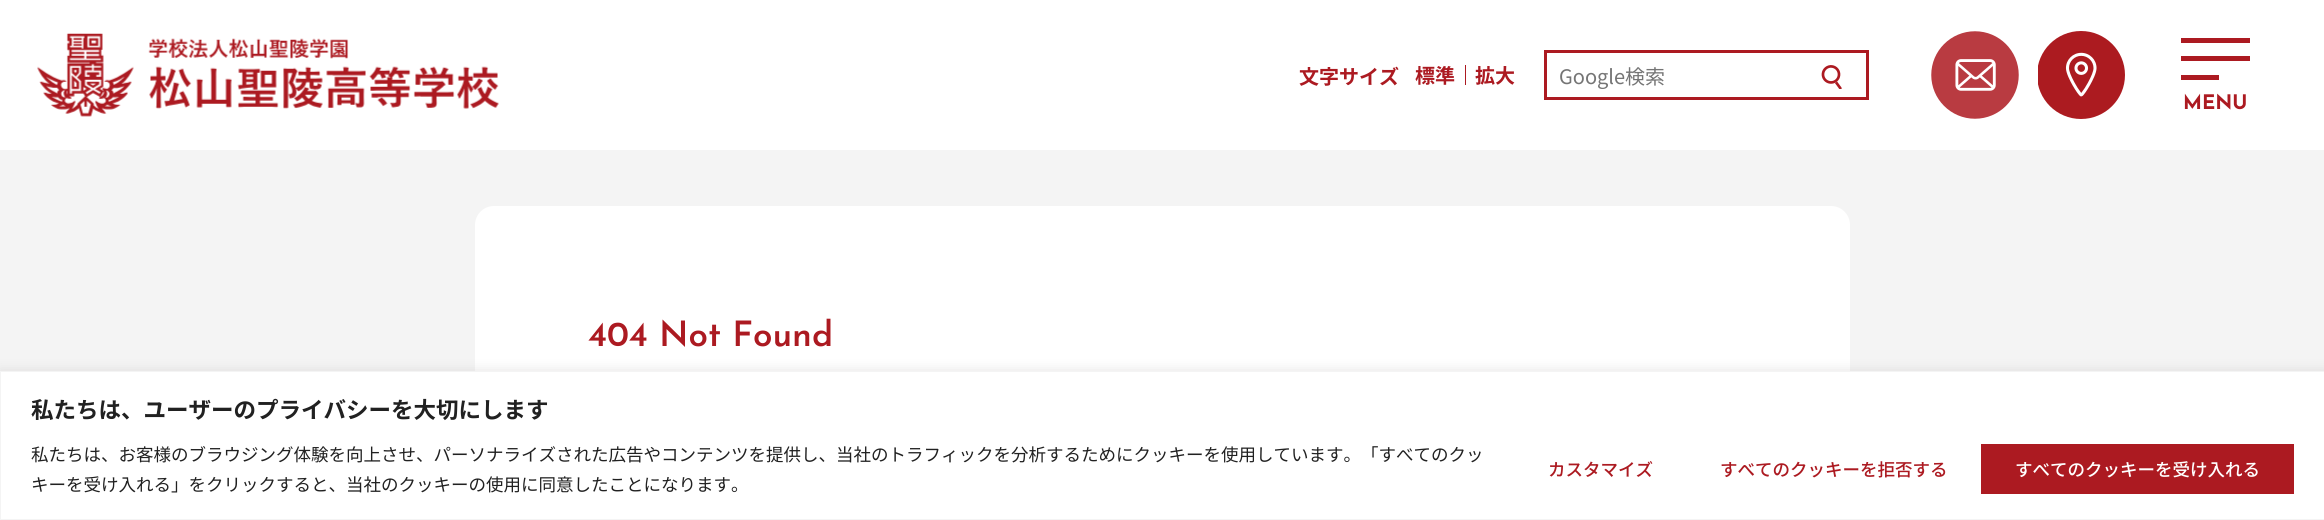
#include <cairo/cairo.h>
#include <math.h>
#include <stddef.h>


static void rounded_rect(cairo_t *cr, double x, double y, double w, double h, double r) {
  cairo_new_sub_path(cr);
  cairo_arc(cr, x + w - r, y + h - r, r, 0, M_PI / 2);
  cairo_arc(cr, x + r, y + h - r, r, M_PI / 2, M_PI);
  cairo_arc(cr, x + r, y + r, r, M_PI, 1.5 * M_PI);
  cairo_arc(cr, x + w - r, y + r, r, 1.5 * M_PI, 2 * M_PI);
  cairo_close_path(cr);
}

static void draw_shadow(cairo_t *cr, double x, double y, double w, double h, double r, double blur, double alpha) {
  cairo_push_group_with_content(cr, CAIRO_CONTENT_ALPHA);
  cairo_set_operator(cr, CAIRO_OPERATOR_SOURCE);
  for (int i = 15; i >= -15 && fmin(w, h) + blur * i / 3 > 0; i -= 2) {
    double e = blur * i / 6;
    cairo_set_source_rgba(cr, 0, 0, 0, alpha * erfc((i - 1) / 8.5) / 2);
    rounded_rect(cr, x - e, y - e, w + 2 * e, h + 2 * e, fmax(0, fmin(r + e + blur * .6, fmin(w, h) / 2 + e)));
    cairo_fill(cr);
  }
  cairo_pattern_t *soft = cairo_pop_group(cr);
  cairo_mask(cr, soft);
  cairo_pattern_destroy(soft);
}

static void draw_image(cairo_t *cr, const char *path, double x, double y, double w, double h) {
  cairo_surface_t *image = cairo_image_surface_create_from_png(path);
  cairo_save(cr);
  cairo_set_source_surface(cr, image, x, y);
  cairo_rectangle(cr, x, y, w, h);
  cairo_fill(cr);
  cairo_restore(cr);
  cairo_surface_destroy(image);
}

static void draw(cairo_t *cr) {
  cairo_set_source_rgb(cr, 1, 1, 1);
  cairo_paint(cr);
  draw_image(cr, "images/1.png", 37, 33, 462, 84);
  cairo_set_source_rgb(cr, 172 / 255.0, 26 / 255.0, 33 / 255.0);
  cairo_rectangle(cr, 1465, 65, 1, 20);
  cairo_fill(cr);
  cairo_rectangle(cr, 1545.5, 51.5, 322, 47);
  cairo_set_line_width(cr, 3);
  cairo_stroke(cr);
  draw_image(cr, "images/2.png", 1821, 65, 21, 24);
  draw_image(cr, "images/3.png", 1931, 31, 88, 88);
  draw_image(cr, "images/4.png", 2038, 31, 87, 88);
  cairo_rectangle(cr, 2181, 56, 69, 5);
  cairo_fill(cr);
  cairo_rectangle(cr, 2181, 38, 69, 5);
  cairo_fill(cr);
  cairo_rectangle(cr, 2181, 75, 38, 5);
  cairo_fill(cr);
  cairo_set_source_rgb(cr, 244 / 255.0, 244 / 255.0, 244 / 255.0);
  cairo_rectangle(cr, 0, 150, 2324, 221);
  cairo_fill(cr);
  cairo_set_source_rgb(cr, 1, 1, 1);
  rounded_rect(cr, 475, 206, 1375, 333, 19);
  cairo_fill(cr);
  cairo_set_source_rgb(cr, 172 / 255.0, 171 / 255.0, 171 / 255.0);
  draw_shadow(cr, 0, 370, 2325, 149, 0, 6, 0.3);
  cairo_set_source_rgb(cr, 1, 1, 1);
  cairo_rectangle(cr, 0.5, 371.5, 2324, 148);
  cairo_fill_preserve(cr);
  cairo_set_source_rgb(cr, 244 / 255.0, 244 / 255.0, 244 / 255.0);
  cairo_set_line_width(cr, 1);
  cairo_stroke(cr);
  cairo_set_source_rgb(cr, 172 / 255.0, 26 / 255.0, 33 / 255.0);
  cairo_rectangle(cr, 1981, 444, 313, 50);
  cairo_fill(cr);
  cairo_select_font_face(cr, "Noto Sans JP", CAIRO_FONT_SLANT_NORMAL, CAIRO_FONT_WEIGHT_BOLD);
  cairo_set_font_size(cr, 20);
  cairo_move_to(cr, 1299, 84);
  cairo_show_text(cr, "文字サイズ");
  cairo_move_to(cr, 1415, 83);
  cairo_show_text(cr, "標準");
  cairo_move_to(cr, 1475, 83);
  cairo_show_text(cr, "拡大");
  cairo_select_font_face(cr, "Noto Sans JP", CAIRO_FONT_SLANT_NORMAL, CAIRO_FONT_WEIGHT_NORMAL);
  cairo_set_source_rgb(cr, 117 / 255.0, 117 / 255.0, 117 / 255.0);
  cairo_move_to(cr, 1559, 84);
  cairo_show_text(cr, "Google検索");
  cairo_select_font_face(cr, "Josefin Sans", CAIRO_FONT_SLANT_NORMAL, CAIRO_FONT_WEIGHT_BOLD);
  cairo_set_source_rgb(cr, 172 / 255.0, 26 / 255.0, 33 / 255.0);
  cairo_move_to(cr, 2183, 109);
  cairo_show_text(cr, "MENU");
  cairo_select_font_face(cr, "Josefin Sans SemiBold", CAIRO_FONT_SLANT_NORMAL, CAIRO_FONT_WEIGHT_NORMAL);
  cairo_set_font_size(cr, 35);
  cairo_move_to(cr, 588, 346);
  cairo_show_text(cr, "404 Not Found");
  cairo_select_font_face(cr, "Noto Sans JP", CAIRO_FONT_SLANT_NORMAL, CAIRO_FONT_WEIGHT_BOLD);
  cairo_set_font_size(cr, 22.5);
  cairo_set_source_rgb(cr, 33 / 255.0, 33 / 255.0, 33 / 255.0);
  cairo_move_to(cr, 31, 418);
  cairo_show_text(cr, "私たちは、ユーザーのプライバシーを大切にします");
  cairo_select_font_face(cr, "Noto Sans JP", CAIRO_FONT_SLANT_NORMAL, CAIRO_FONT_WEIGHT_NORMAL);
  cairo_set_font_size(cr, 17.5);
  cairo_move_to(cr, 31, 461);
  cairo_show_text(cr, "私たちは、お客様のブラウジング体験を向上させ、パーソナライズされた広告やコンテンツを提供し、当社のトラフィックを分析するためにクッキーを使用しています。「すべてのクッ");
  cairo_move_to(cr, 31, 491);
  cairo_show_text(cr, "キーを受け入れる」をクリックすると、当社のクッキーの使用に同意したことになります。");
  cairo_select_font_face(cr, "Noto Sans JP Medium", CAIRO_FONT_SLANT_NORMAL, CAIRO_FONT_WEIGHT_NORMAL);
  cairo_set_source_rgb(cr, 172 / 255.0, 26 / 255.0, 33 / 255.0);
  cairo_move_to(cr, 1548, 476);
  cairo_show_text(cr, "カスタマイズ");
  cairo_move_to(cr, 1720, 476);
  cairo_show_text(cr, "すべてのクッキーを拒否する");
  cairo_set_source_rgb(cr, 1, 1, 1);
  cairo_move_to(cr, 2015, 476);
  cairo_show_text(cr, "すべてのクッキーを受け入れる");
}

int main(void) {
  cairo_surface_t *surface = cairo_image_surface_create(CAIRO_FORMAT_RGB24, 2324, 520);
  cairo_t *cr = cairo_create(surface);
  cairo_font_options_t *options = cairo_font_options_create();
  cairo_font_options_set_hint_metrics(options, CAIRO_HINT_METRICS_OFF);
  cairo_font_options_set_hint_style(options, CAIRO_HINT_STYLE_NONE);
  cairo_set_font_options(cr, options);
  cairo_set_miter_limit(cr, 4);
  draw(cr);
  cairo_surface_write_to_png(surface, "out.png");
  cairo_font_options_destroy(options);
  cairo_destroy(cr);
  cairo_surface_destroy(surface);
  return 0;
}
